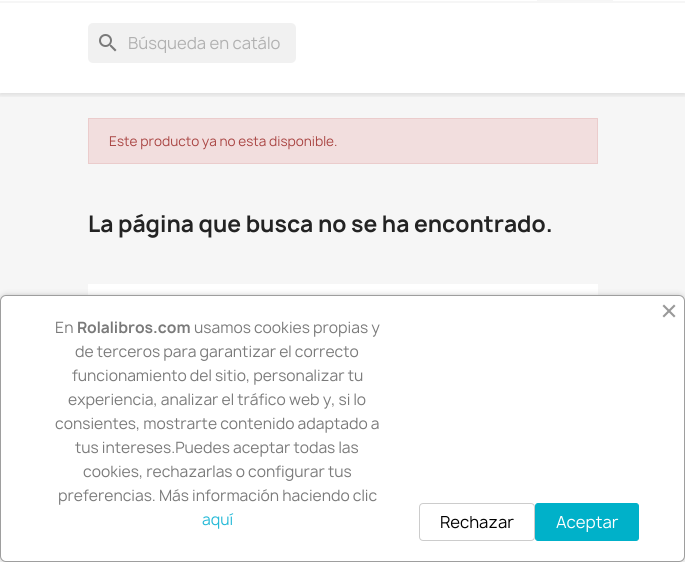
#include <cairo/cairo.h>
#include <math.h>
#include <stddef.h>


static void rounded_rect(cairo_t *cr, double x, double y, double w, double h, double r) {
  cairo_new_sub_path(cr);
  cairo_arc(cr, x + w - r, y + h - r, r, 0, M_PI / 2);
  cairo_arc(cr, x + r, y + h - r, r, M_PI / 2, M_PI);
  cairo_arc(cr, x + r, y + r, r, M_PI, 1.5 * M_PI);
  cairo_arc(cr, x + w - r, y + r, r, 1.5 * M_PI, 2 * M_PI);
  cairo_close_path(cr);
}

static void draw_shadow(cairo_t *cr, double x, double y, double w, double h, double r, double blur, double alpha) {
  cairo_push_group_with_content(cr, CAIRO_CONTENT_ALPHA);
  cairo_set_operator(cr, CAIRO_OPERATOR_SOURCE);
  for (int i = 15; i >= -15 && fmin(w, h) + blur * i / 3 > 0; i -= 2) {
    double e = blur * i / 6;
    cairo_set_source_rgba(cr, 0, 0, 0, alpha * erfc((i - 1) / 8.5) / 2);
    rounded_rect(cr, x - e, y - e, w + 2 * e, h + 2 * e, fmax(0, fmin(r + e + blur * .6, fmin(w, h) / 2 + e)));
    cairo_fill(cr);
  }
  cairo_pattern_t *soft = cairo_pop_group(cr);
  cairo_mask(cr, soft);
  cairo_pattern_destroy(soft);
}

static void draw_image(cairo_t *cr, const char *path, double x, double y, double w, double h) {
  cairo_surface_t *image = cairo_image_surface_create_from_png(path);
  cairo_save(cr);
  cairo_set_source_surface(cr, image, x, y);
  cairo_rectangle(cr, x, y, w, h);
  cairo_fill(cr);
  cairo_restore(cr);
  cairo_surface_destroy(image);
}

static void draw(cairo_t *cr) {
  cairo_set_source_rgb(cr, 1, 1, 1);
  cairo_paint(cr);
  cairo_set_source_rgb(cr, 246 / 255.0, 246 / 255.0, 246 / 255.0);
  cairo_rectangle(cr, 0, 93, 685, 469);
  cairo_fill(cr);
  cairo_save(cr);
  cairo_rectangle(cr, 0, 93, 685, 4);
  cairo_clip(cr);
  cairo_set_source_rgb(cr, 0, 0, 0);
  draw_shadow(cr, 0, -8, 685, 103, 0, 2.5, 0.11);
  cairo_restore(cr);
  cairo_rectangle(cr, 0, 1, 685, 2);
  cairo_fill(cr);
  cairo_rectangle(cr, 537, 0, 76, 1);
  cairo_fill(cr);
  cairo_set_source_rgb(cr, 241 / 255.0, 241 / 255.0, 241 / 255.0);
  rounded_rect(cr, 88, 23, 208, 40, 5);
  cairo_fill(cr);
  draw_image(cr, "images/1.png", 99, 34, 18, 18);
  cairo_set_source_rgb(cr, 242 / 255.0, 222 / 255.0, 222 / 255.0);
  cairo_rectangle(cr, 88.5, 118.5, 509, 45);
  cairo_fill_preserve(cr);
  cairo_set_source_rgb(cr, 235 / 255.0, 204 / 255.0, 204 / 255.0);
  cairo_set_line_width(cr, 1);
  cairo_stroke(cr);
  cairo_set_source_rgb(cr, 1, 1, 1);
  cairo_rectangle(cr, 88, 284, 510, 11);
  cairo_fill(cr);
  cairo_set_source_rgb(cr, 158 / 255.0, 158 / 255.0, 158 / 255.0);
  draw_shadow(cr, 2, 297, 681, 263, 4, 3.5, 1);
  cairo_set_source_rgb(cr, 1, 1, 1);
  rounded_rect(cr, 0.5, 295.5, 684, 266, 5.5);
  cairo_fill_preserve(cr);
  cairo_set_source_rgb(cr, 158 / 255.0, 158 / 255.0, 158 / 255.0);
  cairo_stroke(cr);
  cairo_set_source_rgb(cr, 153 / 255.0, 153 / 255.0, 153 / 255.0);
  cairo_new_path(cr);
  cairo_move_to(cr, 662.5, 316);
  cairo_line_to(cr, 674, 304.5);
  cairo_line_to(cr, 675.5, 306);
  cairo_line_to(cr, 664, 317.5);
  cairo_close_path(cr);
  cairo_fill(cr);
  cairo_new_path(cr);
  cairo_move_to(cr, 664, 304.5);
  cairo_line_to(cr, 675.5, 316);
  cairo_line_to(cr, 674, 317.5);
  cairo_line_to(cr, 662.5, 306);
  cairo_close_path(cr);
  cairo_fill(cr);
  rounded_rect(cr, 419.5, 503.5, 115, 37, 3.5);
  cairo_set_source_rgb(cr, 204 / 255.0, 204 / 255.0, 204 / 255.0);
  cairo_stroke(cr);
  cairo_set_source_rgb(cr, 0, 177 / 255.0, 201 / 255.0);
  rounded_rect(cr, 535.5, 503.5, 103, 37, 2.5);
  cairo_fill_preserve(cr);
  cairo_stroke(cr);
  cairo_select_font_face(cr, "Manrope", CAIRO_FONT_SLANT_NORMAL, CAIRO_FONT_WEIGHT_NORMAL);
  cairo_set_font_size(cr, 16);
  cairo_set_source_rgb(cr, 177 / 255.0, 177 / 255.0, 177 / 255.0);
  cairo_move_to(cr, 128, 49);
  cairo_show_text(cr, "Búsqueda en catálo");
  cairo_set_font_size(cr, 13);
  cairo_set_source_rgb(cr, 169 / 255.0, 68 / 255.0, 66 / 255.0);
  cairo_move_to(cr, 109, 146);
  cairo_show_text(cr, "Este producto ya no esta disponible.");
  cairo_select_font_face(cr, "Manrope", CAIRO_FONT_SLANT_NORMAL, CAIRO_FONT_WEIGHT_BOLD);
  cairo_set_font_size(cr, 22);
  cairo_set_source_rgb(cr, 35 / 255.0, 35 / 255.0, 35 / 255.0);
  cairo_move_to(cr, 88, 232);
  cairo_show_text(cr, "La página que busca no se ha encontrado.");
  cairo_select_font_face(cr, "Manrope", CAIRO_FONT_SLANT_NORMAL, CAIRO_FONT_WEIGHT_NORMAL);
  cairo_set_font_size(cr, 15);
  cairo_set_source_rgb(cr, 122 / 255.0, 122 / 255.0, 122 / 255.0);
  cairo_move_to(cr, 55, 333);
  cairo_show_text(cr, "En");
  cairo_select_font_face(cr, "Manrope", CAIRO_FONT_SLANT_NORMAL, CAIRO_FONT_WEIGHT_BOLD);
  cairo_move_to(cr, 77, 333);
  cairo_show_text(cr, "Rolalibros.com");
  cairo_select_font_face(cr, "Manrope", CAIRO_FONT_SLANT_NORMAL, CAIRO_FONT_WEIGHT_NORMAL);
  cairo_move_to(cr, 194, 333);
  cairo_show_text(cr, "usamos cookies propias y");
  cairo_move_to(cr, 75, 357);
  cairo_show_text(cr, "de terceros para garantizar el correcto");
  cairo_move_to(cr, 72, 381);
  cairo_show_text(cr, "funcionamiento del sitio, personalizar tu");
  cairo_move_to(cr, 68, 405);
  cairo_show_text(cr, "experiencia, analizar el tráfico web y, si lo");
  cairo_move_to(cr, 55, 429);
  cairo_show_text(cr, "consientes, mostrarte contenido adaptado a");
  cairo_move_to(cr, 75, 453);
  cairo_show_text(cr, "tus intereses.Puedes aceptar todas las");
  cairo_move_to(cr, 83, 477);
  cairo_show_text(cr, "cookies, rechazarlas o configurar tus");
  cairo_move_to(cr, 58, 501);
  cairo_show_text(cr, "preferencias. Más información haciendo clic");
  cairo_set_source_rgb(cr, 36 / 255.0, 185 / 255.0, 215 / 255.0);
  cairo_move_to(cr, 202, 525);
  cairo_show_text(cr, "aquí");
  cairo_set_font_size(cr, 16);
  cairo_set_source_rgb(cr, 0, 0, 0);
  cairo_move_to(cr, 440, 528);
  cairo_show_text(cr, "Rechazar");
  cairo_set_source_rgb(cr, 1, 1, 1);
  cairo_move_to(cr, 556, 528);
  cairo_show_text(cr, "Aceptar");
}

int main(void) {
  cairo_surface_t *surface = cairo_image_surface_create(CAIRO_FORMAT_RGB24, 685, 562);
  cairo_t *cr = cairo_create(surface);
  cairo_font_options_t *options = cairo_font_options_create();
  cairo_font_options_set_hint_metrics(options, CAIRO_HINT_METRICS_OFF);
  cairo_font_options_set_hint_style(options, CAIRO_HINT_STYLE_NONE);
  cairo_set_font_options(cr, options);
  cairo_set_miter_limit(cr, 4);
  draw(cr);
  cairo_surface_write_to_png(surface, "out.png");
  cairo_font_options_destroy(options);
  cairo_destroy(cr);
  cairo_surface_destroy(surface);
  return 0;
}
